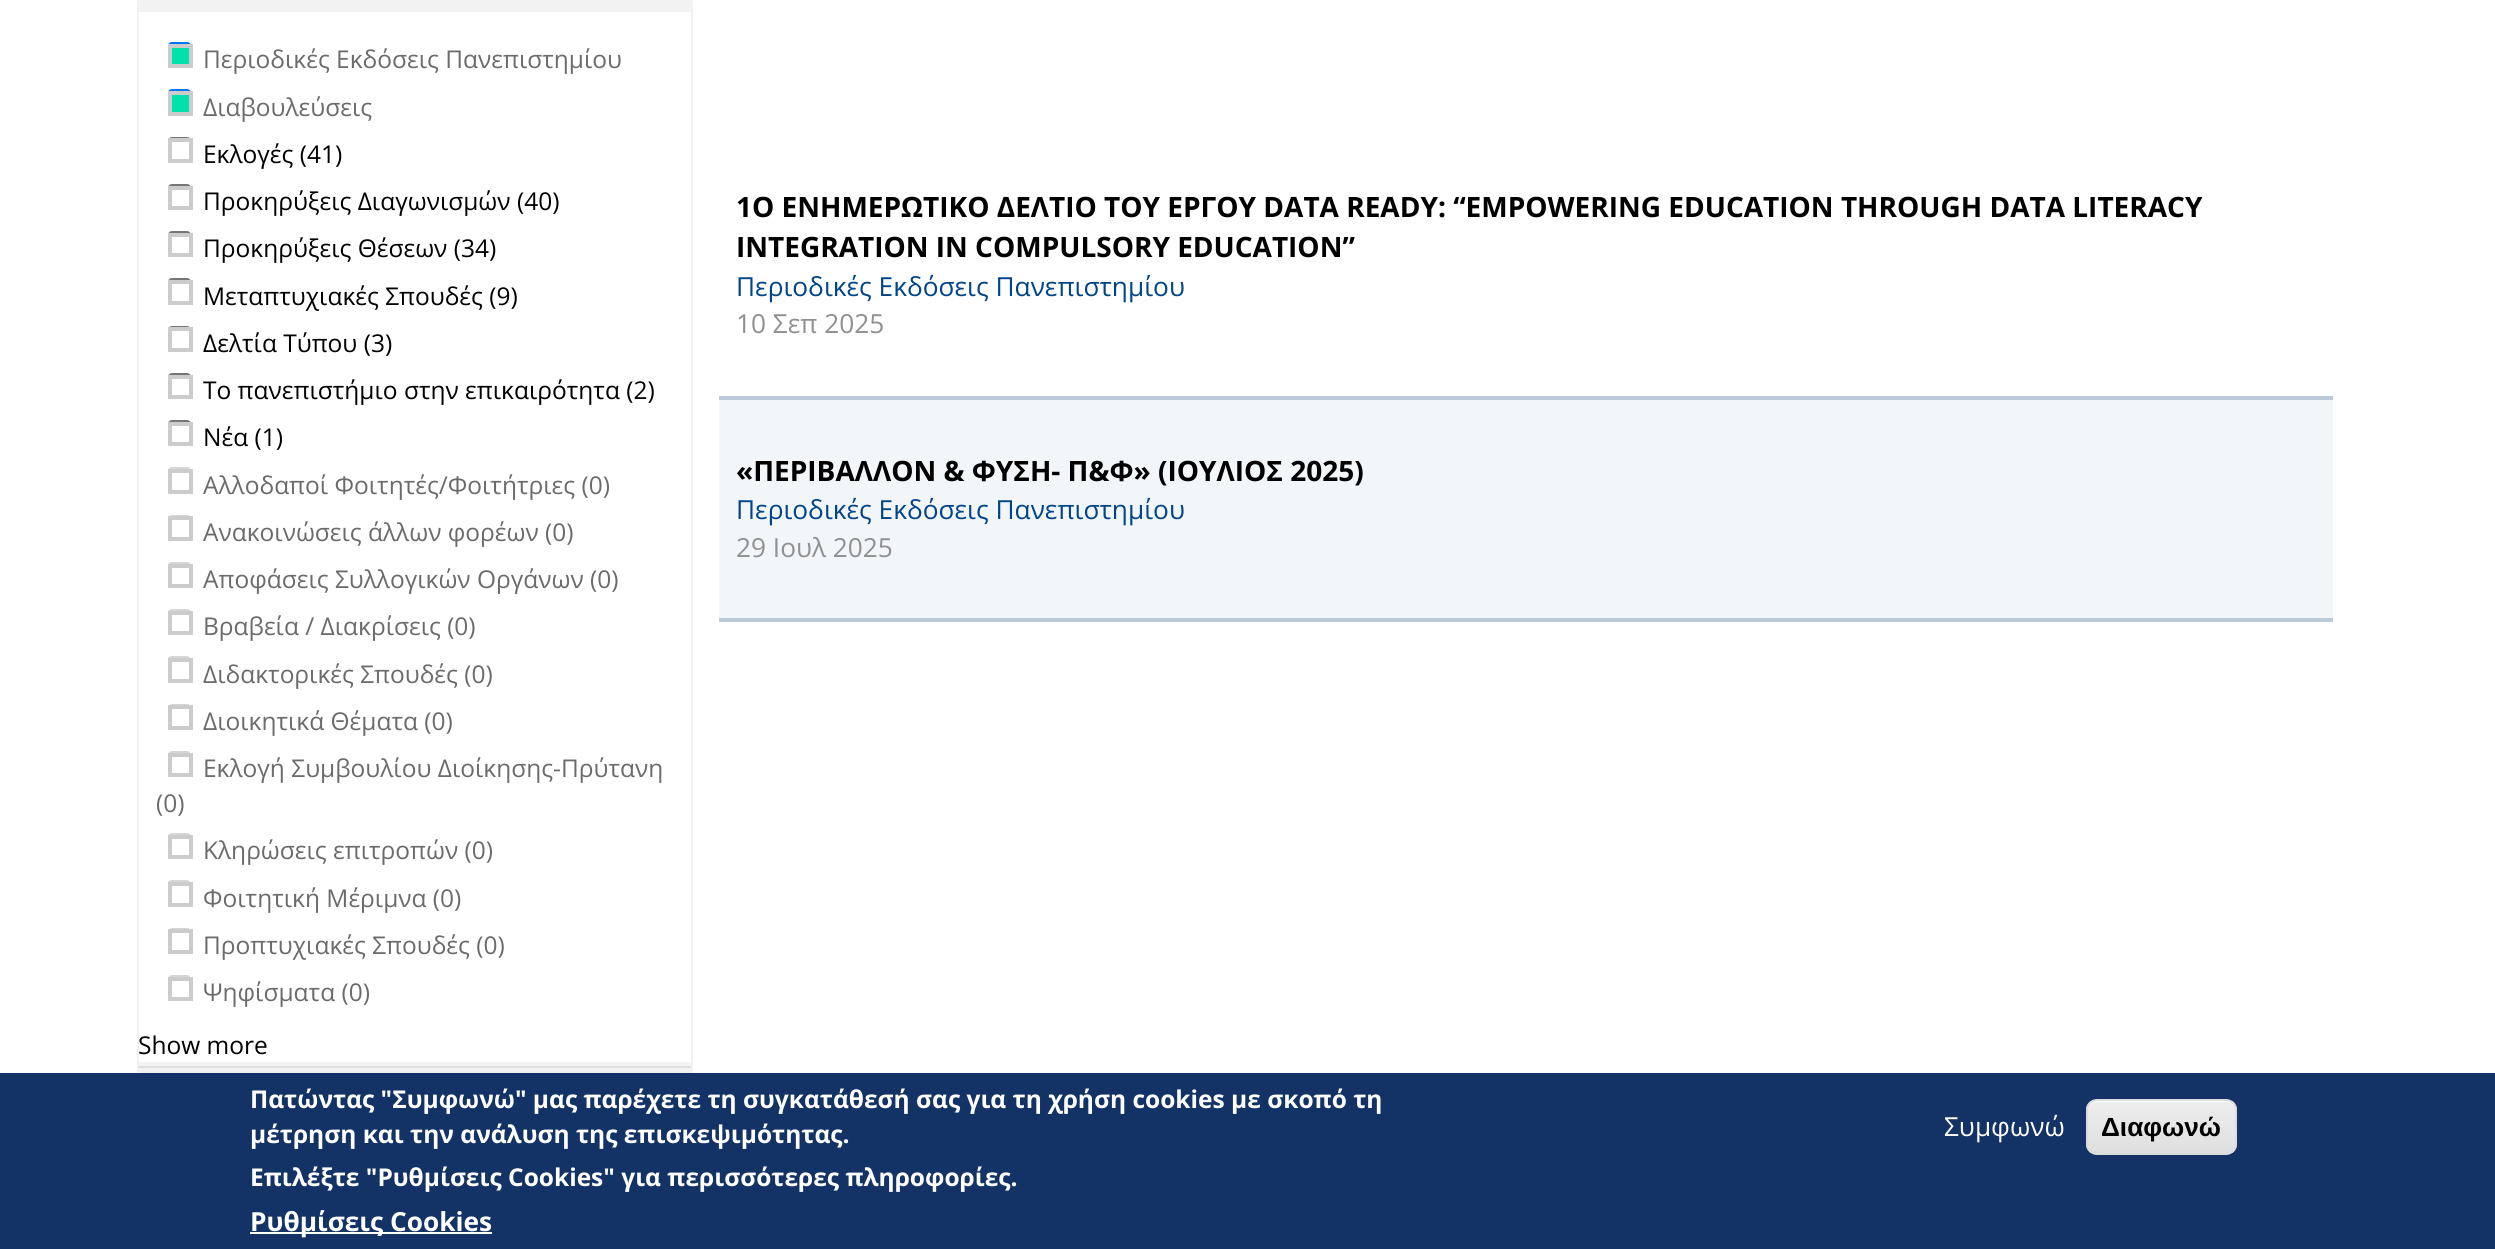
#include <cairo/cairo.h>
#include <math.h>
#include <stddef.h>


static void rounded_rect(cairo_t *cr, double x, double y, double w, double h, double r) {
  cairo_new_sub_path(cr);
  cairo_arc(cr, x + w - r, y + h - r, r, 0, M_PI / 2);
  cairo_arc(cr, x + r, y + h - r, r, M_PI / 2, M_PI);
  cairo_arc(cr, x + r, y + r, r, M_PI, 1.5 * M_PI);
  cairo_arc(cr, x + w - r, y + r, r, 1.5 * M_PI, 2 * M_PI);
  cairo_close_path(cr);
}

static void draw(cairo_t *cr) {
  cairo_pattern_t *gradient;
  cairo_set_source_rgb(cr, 1, 1, 1);
  cairo_paint(cr);
  cairo_rectangle(cr, 138, -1, 554, 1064);
  cairo_set_source_rgb(cr, 242 / 255.0, 242 / 255.0, 242 / 255.0);
  cairo_stroke(cr);
  cairo_rectangle(cr, 139, 0, 552, 12);
  cairo_fill(cr);
  cairo_set_source_rgb(cr, 0, 117 / 255.0, 1);
  rounded_rect(cr, 168, 42, 23, 23, 4);
  cairo_fill(cr);
  cairo_set_source_rgb(cr, 0, 226 / 255.0, 170 / 255.0);
  cairo_rectangle(cr, 170, 46, 21, 20);
  cairo_fill_preserve(cr);
  cairo_set_source_rgb(cr, 204 / 255.0, 204 / 255.0, 204 / 255.0);
  cairo_set_line_width(cr, 4);
  cairo_stroke(cr);
  cairo_set_source_rgb(cr, 0, 117 / 255.0, 1);
  rounded_rect(cr, 168, 89, 23, 23, 4);
  cairo_fill(cr);
  cairo_set_source_rgb(cr, 0, 226 / 255.0, 170 / 255.0);
  cairo_rectangle(cr, 170, 93, 21, 21);
  cairo_fill_preserve(cr);
  cairo_set_source_rgb(cr, 204 / 255.0, 204 / 255.0, 204 / 255.0);
  cairo_stroke(cr);
  rounded_rect(cr, 169, 138, 21, 20, 3);
  cairo_set_source_rgb(cr, 118 / 255.0, 118 / 255.0, 118 / 255.0);
  cairo_set_line_width(cr, 2);
  cairo_stroke(cr);
  cairo_set_source_rgb(cr, 1, 1, 1);
  cairo_rectangle(cr, 172, 155, 17, 4);
  cairo_fill(cr);
  cairo_rectangle(cr, 170, 140, 21, 21);
  cairo_set_source_rgb(cr, 204 / 255.0, 204 / 255.0, 204 / 255.0);
  cairo_set_line_width(cr, 4);
  cairo_stroke(cr);
  rounded_rect(cr, 169, 185, 21, 21, 3);
  cairo_set_source_rgb(cr, 118 / 255.0, 118 / 255.0, 118 / 255.0);
  cairo_set_line_width(cr, 2);
  cairo_stroke(cr);
  cairo_set_source_rgb(cr, 1, 1, 1);
  cairo_rectangle(cr, 172, 203, 17, 3);
  cairo_fill(cr);
  cairo_rectangle(cr, 170, 188, 21, 20);
  cairo_set_source_rgb(cr, 204 / 255.0, 204 / 255.0, 204 / 255.0);
  cairo_set_line_width(cr, 4);
  cairo_stroke(cr);
  rounded_rect(cr, 169, 232, 21, 21, 3);
  cairo_set_source_rgb(cr, 118 / 255.0, 118 / 255.0, 118 / 255.0);
  cairo_set_line_width(cr, 2);
  cairo_stroke(cr);
  cairo_set_source_rgb(cr, 1, 1, 1);
  cairo_rectangle(cr, 172, 250, 17, 3);
  cairo_fill(cr);
  cairo_rectangle(cr, 170, 235, 21, 20);
  cairo_set_source_rgb(cr, 204 / 255.0, 204 / 255.0, 204 / 255.0);
  cairo_set_line_width(cr, 4);
  cairo_stroke(cr);
  rounded_rect(cr, 169, 279, 21, 21, 3);
  cairo_set_source_rgb(cr, 118 / 255.0, 118 / 255.0, 118 / 255.0);
  cairo_set_line_width(cr, 2);
  cairo_stroke(cr);
  cairo_set_source_rgb(cr, 1, 1, 1);
  cairo_rectangle(cr, 172, 297, 17, 4);
  cairo_fill(cr);
  cairo_rectangle(cr, 170, 282, 21, 21);
  cairo_set_source_rgb(cr, 204 / 255.0, 204 / 255.0, 204 / 255.0);
  cairo_set_line_width(cr, 4);
  cairo_stroke(cr);
  rounded_rect(cr, 169, 327, 21, 20, 3);
  cairo_set_source_rgb(cr, 118 / 255.0, 118 / 255.0, 118 / 255.0);
  cairo_set_line_width(cr, 2);
  cairo_stroke(cr);
  cairo_set_source_rgb(cr, 1, 1, 1);
  cairo_rectangle(cr, 172, 344, 17, 4);
  cairo_fill(cr);
  cairo_rectangle(cr, 170, 329, 21, 21);
  cairo_set_source_rgb(cr, 204 / 255.0, 204 / 255.0, 204 / 255.0);
  cairo_set_line_width(cr, 4);
  cairo_stroke(cr);
  rounded_rect(cr, 169, 374, 21, 21, 3);
  cairo_set_source_rgb(cr, 118 / 255.0, 118 / 255.0, 118 / 255.0);
  cairo_set_line_width(cr, 2);
  cairo_stroke(cr);
  cairo_set_source_rgb(cr, 1, 1, 1);
  cairo_rectangle(cr, 172, 392, 17, 3);
  cairo_fill(cr);
  cairo_rectangle(cr, 170, 377, 21, 20);
  cairo_set_source_rgb(cr, 204 / 255.0, 204 / 255.0, 204 / 255.0);
  cairo_set_line_width(cr, 4);
  cairo_stroke(cr);
  rounded_rect(cr, 169, 421, 21, 21, 3);
  cairo_set_source_rgb(cr, 118 / 255.0, 118 / 255.0, 118 / 255.0);
  cairo_set_line_width(cr, 2);
  cairo_stroke(cr);
  cairo_set_source_rgb(cr, 1, 1, 1);
  cairo_rectangle(cr, 172, 439, 17, 3);
  cairo_fill(cr);
  cairo_rectangle(cr, 170, 424, 21, 20);
  cairo_set_source_rgb(cr, 204 / 255.0, 204 / 255.0, 204 / 255.0);
  cairo_set_line_width(cr, 4);
  cairo_stroke(cr);
  rounded_rect(cr, 169, 468, 21, 21, 3);
  cairo_set_source_rgb(cr, 214 / 255.0, 214 / 255.0, 214 / 255.0);
  cairo_set_line_width(cr, 2);
  cairo_stroke(cr);
  cairo_set_source_rgb(cr, 1, 1, 1);
  cairo_rectangle(cr, 172, 486, 17, 4);
  cairo_fill(cr);
  cairo_rectangle(cr, 170, 471, 21, 21);
  cairo_set_source_rgb(cr, 204 / 255.0, 204 / 255.0, 204 / 255.0);
  cairo_set_line_width(cr, 4);
  cairo_stroke(cr);
  rounded_rect(cr, 169, 516, 21, 20, 3);
  cairo_set_source_rgb(cr, 214 / 255.0, 214 / 255.0, 214 / 255.0);
  cairo_set_line_width(cr, 2);
  cairo_stroke(cr);
  cairo_set_source_rgb(cr, 1, 1, 1);
  cairo_rectangle(cr, 172, 533, 17, 4);
  cairo_fill(cr);
  cairo_rectangle(cr, 170, 518, 21, 21);
  cairo_set_source_rgb(cr, 204 / 255.0, 204 / 255.0, 204 / 255.0);
  cairo_set_line_width(cr, 4);
  cairo_stroke(cr);
  rounded_rect(cr, 169, 563, 21, 21, 3);
  cairo_set_source_rgb(cr, 214 / 255.0, 214 / 255.0, 214 / 255.0);
  cairo_set_line_width(cr, 2);
  cairo_stroke(cr);
  cairo_set_source_rgb(cr, 1, 1, 1);
  cairo_rectangle(cr, 172, 581, 17, 3);
  cairo_fill(cr);
  cairo_rectangle(cr, 170, 566, 21, 20);
  cairo_set_source_rgb(cr, 204 / 255.0, 204 / 255.0, 204 / 255.0);
  cairo_set_line_width(cr, 4);
  cairo_stroke(cr);
  rounded_rect(cr, 169, 610, 21, 21, 3);
  cairo_set_source_rgb(cr, 214 / 255.0, 214 / 255.0, 214 / 255.0);
  cairo_set_line_width(cr, 2);
  cairo_stroke(cr);
  cairo_set_source_rgb(cr, 1, 1, 1);
  cairo_rectangle(cr, 172, 628, 17, 3);
  cairo_fill(cr);
  cairo_rectangle(cr, 170, 613, 21, 20);
  cairo_set_source_rgb(cr, 204 / 255.0, 204 / 255.0, 204 / 255.0);
  cairo_set_line_width(cr, 4);
  cairo_stroke(cr);
  rounded_rect(cr, 169, 657, 21, 21, 3);
  cairo_set_source_rgb(cr, 214 / 255.0, 214 / 255.0, 214 / 255.0);
  cairo_set_line_width(cr, 2);
  cairo_stroke(cr);
  cairo_set_source_rgb(cr, 1, 1, 1);
  cairo_rectangle(cr, 172, 675, 17, 4);
  cairo_fill(cr);
  cairo_rectangle(cr, 170, 660, 21, 21);
  cairo_set_source_rgb(cr, 204 / 255.0, 204 / 255.0, 204 / 255.0);
  cairo_set_line_width(cr, 4);
  cairo_stroke(cr);
  rounded_rect(cr, 169, 705, 21, 20, 3);
  cairo_set_source_rgb(cr, 214 / 255.0, 214 / 255.0, 214 / 255.0);
  cairo_set_line_width(cr, 2);
  cairo_stroke(cr);
  cairo_set_source_rgb(cr, 1, 1, 1);
  cairo_rectangle(cr, 172, 722, 17, 4);
  cairo_fill(cr);
  cairo_rectangle(cr, 170, 707, 21, 21);
  cairo_set_source_rgb(cr, 204 / 255.0, 204 / 255.0, 204 / 255.0);
  cairo_set_line_width(cr, 4);
  cairo_stroke(cr);
  rounded_rect(cr, 169, 752, 21, 21, 3);
  cairo_set_source_rgb(cr, 214 / 255.0, 214 / 255.0, 214 / 255.0);
  cairo_set_line_width(cr, 2);
  cairo_stroke(cr);
  cairo_set_source_rgb(cr, 1, 1, 1);
  cairo_rectangle(cr, 172, 770, 17, 3);
  cairo_fill(cr);
  cairo_rectangle(cr, 170, 755, 21, 20);
  cairo_set_source_rgb(cr, 204 / 255.0, 204 / 255.0, 204 / 255.0);
  cairo_set_line_width(cr, 4);
  cairo_stroke(cr);
  rounded_rect(cr, 169, 834, 21, 21, 3);
  cairo_set_source_rgb(cr, 214 / 255.0, 214 / 255.0, 214 / 255.0);
  cairo_set_line_width(cr, 2);
  cairo_stroke(cr);
  cairo_set_source_rgb(cr, 1, 1, 1);
  cairo_rectangle(cr, 172, 852, 17, 3);
  cairo_fill(cr);
  cairo_rectangle(cr, 170, 837, 21, 20);
  cairo_set_source_rgb(cr, 204 / 255.0, 204 / 255.0, 204 / 255.0);
  cairo_set_line_width(cr, 4);
  cairo_stroke(cr);
  rounded_rect(cr, 169, 881, 21, 21, 3);
  cairo_set_source_rgb(cr, 214 / 255.0, 214 / 255.0, 214 / 255.0);
  cairo_set_line_width(cr, 2);
  cairo_stroke(cr);
  cairo_set_source_rgb(cr, 1, 1, 1);
  cairo_rectangle(cr, 172, 899, 17, 4);
  cairo_fill(cr);
  cairo_rectangle(cr, 170, 884, 21, 21);
  cairo_set_source_rgb(cr, 204 / 255.0, 204 / 255.0, 204 / 255.0);
  cairo_set_line_width(cr, 4);
  cairo_stroke(cr);
  rounded_rect(cr, 169, 929, 21, 20, 3);
  cairo_set_source_rgb(cr, 214 / 255.0, 214 / 255.0, 214 / 255.0);
  cairo_set_line_width(cr, 2);
  cairo_stroke(cr);
  cairo_set_source_rgb(cr, 1, 1, 1);
  cairo_rectangle(cr, 172, 946, 17, 4);
  cairo_fill(cr);
  cairo_rectangle(cr, 170, 931, 21, 21);
  cairo_set_source_rgb(cr, 204 / 255.0, 204 / 255.0, 204 / 255.0);
  cairo_set_line_width(cr, 4);
  cairo_stroke(cr);
  rounded_rect(cr, 169, 976, 21, 21, 3);
  cairo_set_source_rgb(cr, 214 / 255.0, 214 / 255.0, 214 / 255.0);
  cairo_set_line_width(cr, 2);
  cairo_stroke(cr);
  cairo_set_source_rgb(cr, 1, 1, 1);
  cairo_rectangle(cr, 172, 994, 17, 3);
  cairo_fill(cr);
  cairo_rectangle(cr, 170, 979, 21, 20);
  cairo_set_source_rgb(cr, 204 / 255.0, 204 / 255.0, 204 / 255.0);
  cairo_set_line_width(cr, 4);
  cairo_stroke(cr);
  cairo_rectangle(cr, 138, 1065, 554, 112);
  cairo_set_source_rgb(cr, 242 / 255.0, 242 / 255.0, 242 / 255.0);
  cairo_set_line_width(cr, 2);
  cairo_stroke(cr);
  cairo_rectangle(cr, 138, 1068, 553, 5);
  cairo_fill(cr);
  cairo_set_source_rgb(cr, 224 / 255.0, 224 / 255.0, 224 / 255.0);
  cairo_rectangle(cr, 138, 1066, 553, 2);
  cairo_fill(cr);
  cairo_set_source_rgb(cr, 243 / 255.0, 246 / 255.0, 248 / 255.0);
  cairo_rectangle(cr, 719, 400, 1614, 218);
  cairo_fill(cr);
  cairo_set_source_rgb(cr, 188 / 255.0, 202 / 255.0, 216 / 255.0);
  cairo_rectangle(cr, 719, 396, 1614, 4);
  cairo_fill(cr);
  cairo_rectangle(cr, 719, 618, 1614, 4);
  cairo_fill(cr);
  cairo_set_source_rgb(cr, 19 / 255.0, 50 / 255.0, 102 / 255.0);
  cairo_rectangle(cr, 0, 1073, 2495, 176);
  cairo_fill(cr);
  cairo_set_source_rgb(cr, 1, 1, 1);
  cairo_rectangle(cr, 250, 1232, 242, 2);
  cairo_fill(cr);
  cairo_save(cr);
  rounded_rect(cr, 2086, 1099, 151, 56, 11);
  cairo_clip(cr);
  gradient = cairo_pattern_create_linear(2161, 1101, 2161, 1153);
  cairo_pattern_add_color_stop_rgba(gradient, 0.05, 237 / 255.0, 237 / 255.0, 237 / 255.0, 1);
  cairo_pattern_add_color_stop_rgba(gradient, 1, 223 / 255.0, 223 / 255.0, 223 / 255.0, 1);
  cairo_set_source(cr, gradient);
  cairo_pattern_destroy(gradient);
  cairo_rectangle(cr, 2086, 1101, 151, 52);
  cairo_fill(cr);
  cairo_restore(cr);
  cairo_new_path(cr);
  cairo_move_to(cr, 2096, 1102);
  cairo_line_to(cr, 2226, 1102);
  cairo_curve_to(cr, 2231, 1102, 2235, 1106, 2235, 1111);
  cairo_curve_to(cr, 2235, 1096, 2213, 1101, 2204, 1101);
  cairo_line_to(cr, 2118, 1101);
  cairo_curve_to(cr, 2110, 1101, 2088, 1096, 2088, 1111);
  cairo_curve_to(cr, 2088, 1106, 2092, 1102, 2096, 1102);
  cairo_close_path(cr);
  cairo_fill(cr);
  rounded_rect(cr, 2087, 1100, 149, 54, 10);
  cairo_set_source_rgb(cr, 220 / 255.0, 220 / 255.0, 220 / 255.0);
  cairo_stroke(cr);
  cairo_select_font_face(cr, "Open Sans", CAIRO_FONT_SLANT_NORMAL, CAIRO_FONT_WEIGHT_NORMAL);
  cairo_set_font_size(cr, 24.5);
  cairo_set_source_rgb(cr, 107 / 255.0, 107 / 255.0, 107 / 255.0);
  cairo_move_to(cr, 203, 68);
  cairo_show_text(cr, "Περιοδικές Εκδόσεις Πανεπιστημίου");
  cairo_move_to(cr, 203, 116);
  cairo_show_text(cr, "Διαβουλεύσεις");
  cairo_set_source_rgb(cr, 0, 0, 0);
  cairo_move_to(cr, 203, 163);
  cairo_show_text(cr, "Εκλογές (41)");
  cairo_move_to(cr, 203, 210);
  cairo_show_text(cr, "Προκηρύξεις Διαγωνισμών (40)");
  cairo_move_to(cr, 203, 257);
  cairo_show_text(cr, "Προκηρύξεις Θέσεων (34)");
  cairo_move_to(cr, 203, 305);
  cairo_show_text(cr, "Μεταπτυχιακές Σπουδές (9)");
  cairo_move_to(cr, 203, 352);
  cairo_show_text(cr, "Δελτία Τύπου (3)");
  cairo_move_to(cr, 203, 399);
  cairo_show_text(cr, "Το πανεπιστήμιο στην επικαιρότητα (2)");
  cairo_move_to(cr, 203, 446);
  cairo_show_text(cr, "Νέα (1)");
  cairo_set_source_rgb(cr, 107 / 255.0, 107 / 255.0, 107 / 255.0);
  cairo_move_to(cr, 203, 494);
  cairo_show_text(cr, "Αλλοδαποί Φοιτητές/Φοιτήτριες (0)");
  cairo_move_to(cr, 203, 541);
  cairo_show_text(cr, "Ανακοινώσεις άλλων φορέων (0)");
  cairo_move_to(cr, 203, 588);
  cairo_show_text(cr, "Αποφάσεις Συλλογικών Οργάνων (0)");
  cairo_move_to(cr, 203, 635);
  cairo_show_text(cr, "Βραβεία / Διακρίσεις (0)");
  cairo_move_to(cr, 203, 683);
  cairo_show_text(cr, "Διδακτορικές Σπουδές (0)");
  cairo_move_to(cr, 203, 730);
  cairo_show_text(cr, "Διοικητικά Θέματα (0)");
  cairo_move_to(cr, 203, 777);
  cairo_show_text(cr, "Εκλογή Συμβουλίου Διοίκησης-Πρύτανη");
  cairo_move_to(cr, 156, 812);
  cairo_show_text(cr, "(0)");
  cairo_move_to(cr, 203, 859);
  cairo_show_text(cr, "Κληρώσεις επιτροπών (0)");
  cairo_move_to(cr, 203, 907);
  cairo_show_text(cr, "Φοιτητική Μέριμνα (0)");
  cairo_move_to(cr, 203, 954);
  cairo_show_text(cr, "Προπτυχιακές Σπουδές (0)");
  cairo_move_to(cr, 203, 1001);
  cairo_show_text(cr, "Ψηφίσματα (0)");
  cairo_set_source_rgb(cr, 0, 0, 0);
  cairo_move_to(cr, 138, 1054);
  cairo_show_text(cr, "Show more");
  cairo_select_font_face(cr, "Open Sans", CAIRO_FONT_SLANT_NORMAL, CAIRO_FONT_WEIGHT_BOLD);
  cairo_set_font_size(cr, 28);
  cairo_move_to(cr, 736, 217);
  cairo_show_text(cr, "1O ΕΝΗΜΕΡΩΤΙΚΟ ΔΕΛΤΙΟ ΤΟΥ ΕΡΓΟΥ DATA READY: “EMPOWERING EDUCATION THROUGH DATA LITERACY");
  cairo_move_to(cr, 736, 257);
  cairo_show_text(cr, "INTEGRATION IN COMPULSORY EDUCATION”");
  cairo_select_font_face(cr, "Open Sans", CAIRO_FONT_SLANT_NORMAL, CAIRO_FONT_WEIGHT_NORMAL);
  cairo_set_font_size(cr, 26.25);
  cairo_set_source_rgb(cr, 0, 69 / 255.0, 137 / 255.0);
  cairo_move_to(cr, 736, 296);
  cairo_show_text(cr, "Περιοδικές Εκδόσεις Πανεπιστημίου");
  cairo_set_source_rgb(cr, 144 / 255.0, 144 / 255.0, 144 / 255.0);
  cairo_move_to(cr, 736, 333);
  cairo_show_text(cr, "10 Σεπ 2025");
  cairo_select_font_face(cr, "Open Sans", CAIRO_FONT_SLANT_NORMAL, CAIRO_FONT_WEIGHT_BOLD);
  cairo_set_font_size(cr, 28);
  cairo_set_source_rgb(cr, 0, 0, 0);
  cairo_move_to(cr, 736, 481);
  cairo_show_text(cr, "«ΠΕΡΙΒΑΛΛΟΝ & ΦΥΣΗ- Π&Φ» (ΙΟΥΛΙΟΣ 2025)");
  cairo_select_font_face(cr, "Open Sans", CAIRO_FONT_SLANT_NORMAL, CAIRO_FONT_WEIGHT_NORMAL);
  cairo_set_font_size(cr, 26.25);
  cairo_set_source_rgb(cr, 0, 69 / 255.0, 137 / 255.0);
  cairo_move_to(cr, 736, 519);
  cairo_show_text(cr, "Περιοδικές Εκδόσεις Πανεπιστημίου");
  cairo_set_source_rgb(cr, 144 / 255.0, 144 / 255.0, 144 / 255.0);
  cairo_move_to(cr, 736, 557);
  cairo_show_text(cr, "29 Ιουλ 2025");
  cairo_select_font_face(cr, "Open Sans", CAIRO_FONT_SLANT_NORMAL, CAIRO_FONT_WEIGHT_BOLD);
  cairo_set_font_size(cr, 24.5);
  cairo_set_source_rgb(cr, 1, 1, 1);
  cairo_move_to(cr, 250, 1108);
  cairo_show_text(cr, "Πατώντας \"Συμφωνώ\" μας παρέχετε τη συγκατάθεσή σας για τη χρήση cookies με σκοπό τη");
  cairo_move_to(cr, 250, 1143);
  cairo_show_text(cr, "μέτρηση και την ανάλυση της επισκεψιμότητας.");
  cairo_move_to(cr, 250, 1186);
  cairo_show_text(cr, "Επιλέξτε \"Ρυθμίσεις Cookies\" για περισσότερες πληροφορίες.");
  cairo_set_font_size(cr, 26.25);
  cairo_move_to(cr, 250, 1231);
  cairo_show_text(cr, "Ρυθμίσεις Cookies");
  cairo_select_font_face(cr, "Open Sans", CAIRO_FONT_SLANT_NORMAL, CAIRO_FONT_WEIGHT_NORMAL);
  cairo_move_to(cr, 1944, 1136);
  cairo_show_text(cr, "Συμφωνώ");
  cairo_select_font_face(cr, "Liberation Sans", CAIRO_FONT_SLANT_NORMAL, CAIRO_FONT_WEIGHT_BOLD);
  cairo_set_source_rgb(cr, 0, 0, 0);
  cairo_move_to(cr, 2101, 1136);
  cairo_show_text(cr, "Διαφωνώ");
}

int main(void) {
  cairo_surface_t *surface = cairo_image_surface_create(CAIRO_FORMAT_RGB24, 2495, 1249);
  cairo_t *cr = cairo_create(surface);
  cairo_font_options_t *options = cairo_font_options_create();
  cairo_font_options_set_hint_metrics(options, CAIRO_HINT_METRICS_OFF);
  cairo_font_options_set_hint_style(options, CAIRO_HINT_STYLE_NONE);
  cairo_set_font_options(cr, options);
  cairo_set_miter_limit(cr, 4);
  draw(cr);
  cairo_surface_write_to_png(surface, "out.png");
  cairo_font_options_destroy(options);
  cairo_destroy(cr);
  cairo_surface_destroy(surface);
  return 0;
}
